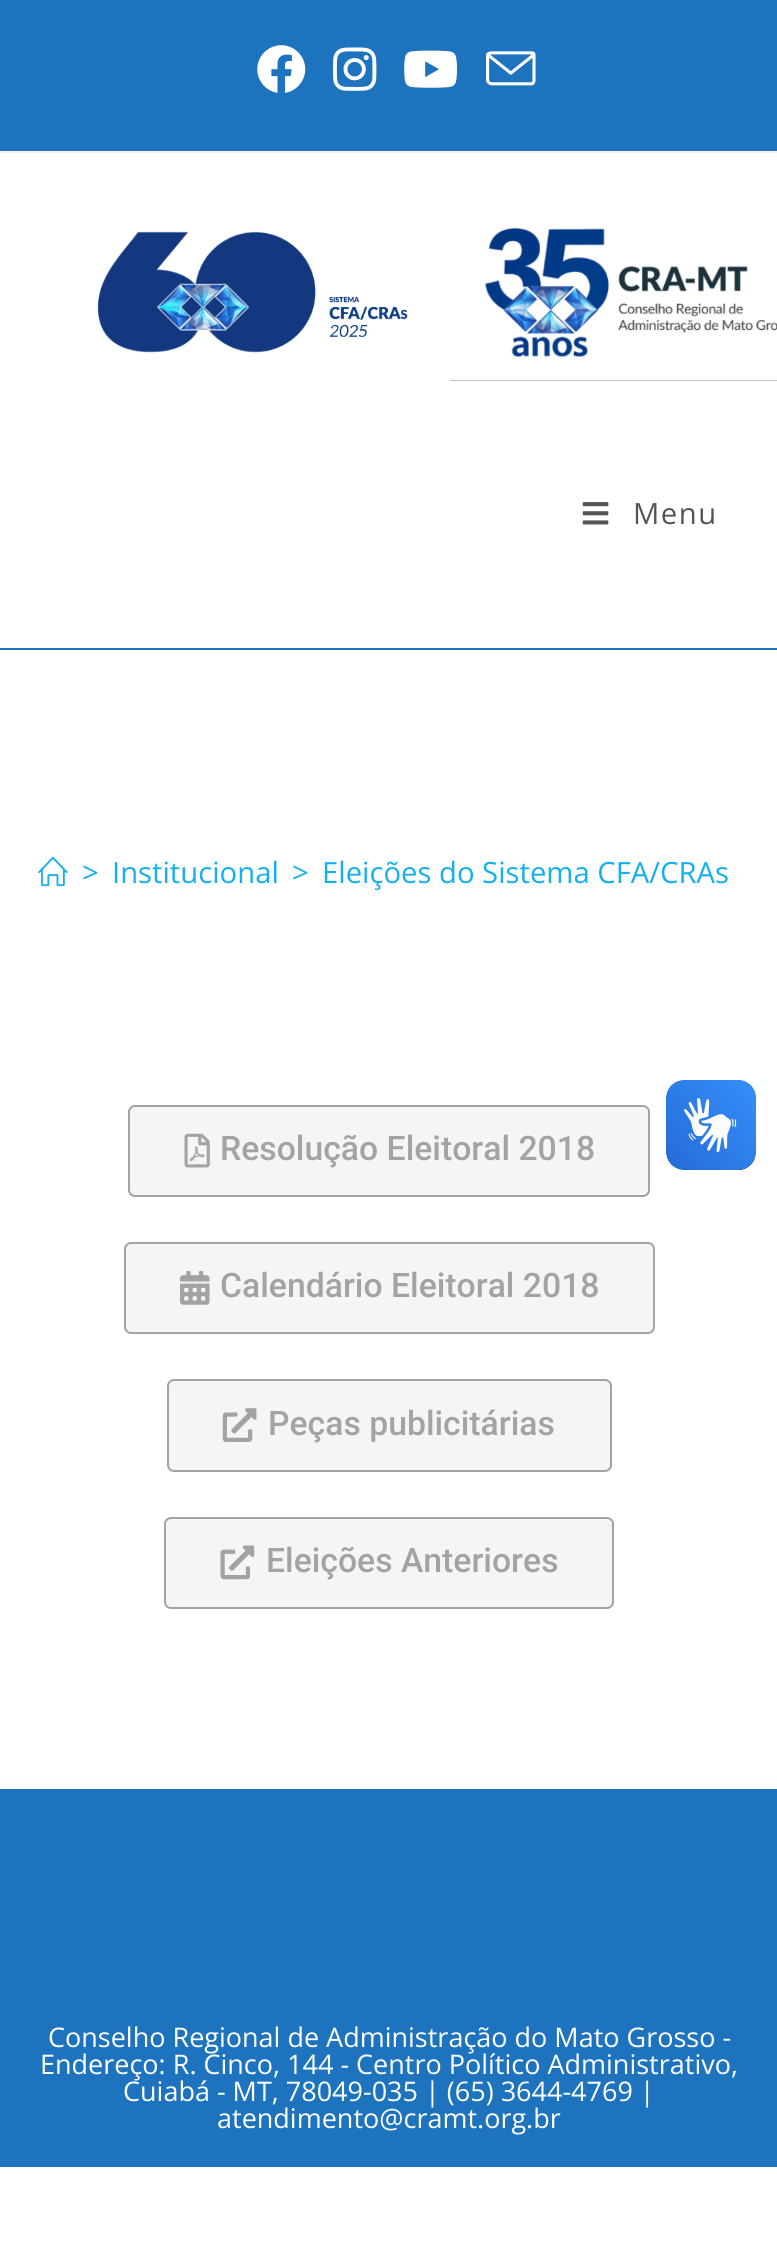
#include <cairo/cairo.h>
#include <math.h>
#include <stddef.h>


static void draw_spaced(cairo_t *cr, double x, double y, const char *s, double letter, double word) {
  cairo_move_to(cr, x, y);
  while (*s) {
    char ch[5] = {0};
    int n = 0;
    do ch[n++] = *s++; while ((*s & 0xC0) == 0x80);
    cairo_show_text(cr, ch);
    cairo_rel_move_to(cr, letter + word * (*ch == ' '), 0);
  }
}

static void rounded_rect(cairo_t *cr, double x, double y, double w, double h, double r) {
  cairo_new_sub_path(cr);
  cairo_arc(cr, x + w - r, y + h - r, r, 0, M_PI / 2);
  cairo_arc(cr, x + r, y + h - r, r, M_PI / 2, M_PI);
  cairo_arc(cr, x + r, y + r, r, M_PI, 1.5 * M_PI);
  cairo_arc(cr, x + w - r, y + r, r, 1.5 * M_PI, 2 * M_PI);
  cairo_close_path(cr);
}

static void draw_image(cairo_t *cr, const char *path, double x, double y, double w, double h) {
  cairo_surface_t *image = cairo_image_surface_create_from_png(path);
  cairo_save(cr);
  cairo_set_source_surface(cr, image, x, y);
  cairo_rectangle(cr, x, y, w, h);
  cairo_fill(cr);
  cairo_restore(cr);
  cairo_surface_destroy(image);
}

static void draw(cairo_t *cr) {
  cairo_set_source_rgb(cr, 1, 1, 1);
  cairo_paint(cr);
  cairo_set_source_rgb(cr, 30 / 255.0, 115 / 255.0, 190 / 255.0);
  cairo_rectangle(cr, 0, 0, 777, 151);
  cairo_fill(cr);
  cairo_set_source_rgb(cr, 241 / 255.0, 241 / 255.0, 241 / 255.0);
  cairo_rectangle(cr, 0, 151, 777, 2);
  cairo_fill(cr);
  draw_image(cr, "images/1.png", 257, 45, 49, 48);
  draw_image(cr, "images/2.png", 333, 47, 44, 44);
  draw_image(cr, "images/3.png", 404, 50, 53, 38);
  draw_image(cr, "images/4.png", 486, 51, 50, 35);
  cairo_set_source_rgb(cr, 30 / 255.0, 115 / 255.0, 190 / 255.0);
  cairo_rectangle(cr, 0, 648, 777, 2);
  cairo_fill(cr);
  draw_image(cr, "images/5.png", 97, 227, 680, 154);
  draw_image(cr, "images/6.png", 582, 502, 27, 23);
  draw_image(cr, "images/7.png", 38, 856, 30, 31);
  cairo_set_source_rgb(cr, 245 / 255.0, 245 / 255.0, 245 / 255.0);
  rounded_rect(cr, 129, 1106, 520, 90, 6);
  cairo_fill_preserve(cr);
  cairo_set_source_rgb(cr, 163 / 255.0, 163 / 255.0, 163 / 255.0);
  cairo_stroke(cr);
  draw_image(cr, "images/8.png", 184, 1133, 26, 35);
  cairo_set_source_rgb(cr, 245 / 255.0, 245 / 255.0, 245 / 255.0);
  rounded_rect(cr, 125, 1243, 529, 90, 6);
  cairo_fill_preserve(cr);
  cairo_set_source_rgb(cr, 163 / 255.0, 163 / 255.0, 163 / 255.0);
  cairo_stroke(cr);
  draw_image(cr, "images/9.png", 180, 1271, 30, 34);
  cairo_set_source_rgb(cr, 245 / 255.0, 245 / 255.0, 245 / 255.0);
  rounded_rect(cr, 168, 1380, 443, 91, 6);
  cairo_fill_preserve(cr);
  cairo_set_source_rgb(cr, 163 / 255.0, 163 / 255.0, 163 / 255.0);
  cairo_stroke(cr);
  draw_image(cr, "images/10.png", 222, 1408, 35, 34);
  cairo_set_source_rgb(cr, 245 / 255.0, 245 / 255.0, 245 / 255.0);
  rounded_rect(cr, 165, 1518, 448, 90, 6);
  cairo_fill_preserve(cr);
  cairo_set_source_rgb(cr, 163 / 255.0, 163 / 255.0, 163 / 255.0);
  cairo_stroke(cr);
  draw_image(cr, "images/11.png", 220, 1545, 35, 35);
  cairo_set_source_rgb(cr, 30 / 255.0, 115 / 255.0, 190 / 255.0);
  cairo_rectangle(cr, 0, 1789, 777, 378);
  cairo_fill(cr);
  draw_image(cr, "images/12.png", 666, 1080, 90, 90);
  draw_image(cr, "images/13.png", 666, 1080, 90, 90);
  cairo_select_font_face(cr, "Open Sans", CAIRO_FONT_SLANT_NORMAL, CAIRO_FONT_WEIGHT_NORMAL);
  cairo_set_font_size(cr, 29.25);
  cairo_set_source_rgb(cr, 85 / 255.0, 85 / 255.0, 85 / 255.0);
  draw_spaced(cr, 633, 524, "Menu", 1.5, 0);
  cairo_set_source_rgb(cr, 19 / 255.0, 175 / 255.0, 240 / 255.0);
  cairo_move_to(cr, 82, 883);
  cairo_show_text(cr, ">");
  cairo_move_to(cr, 112, 883);
  cairo_show_text(cr, "Institucional");
  cairo_move_to(cr, 292, 883);
  cairo_show_text(cr, ">");
  cairo_move_to(cr, 322, 883);
  cairo_show_text(cr, "Eleições do Sistema CFA/CRAs");
  cairo_select_font_face(cr, "Roboto Medium", CAIRO_FONT_SLANT_NORMAL, CAIRO_FONT_WEIGHT_NORMAL);
  cairo_set_font_size(cr, 33.75);
  cairo_set_source_rgb(cr, 163 / 255.0, 163 / 255.0, 163 / 255.0);
  cairo_move_to(cr, 220, 1160);
  cairo_show_text(cr, "Resolução Eleitoral 2018");
  cairo_move_to(cr, 220, 1297);
  cairo_show_text(cr, "Calendário Eleitoral 2018");
  cairo_move_to(cr, 268, 1435);
  cairo_show_text(cr, "Peças publicitárias");
  cairo_move_to(cr, 266, 1572);
  cairo_show_text(cr, "Eleições Anteriores");
  cairo_select_font_face(cr, "Open Sans", CAIRO_FONT_SLANT_NORMAL, CAIRO_FONT_WEIGHT_NORMAL);
  cairo_set_font_size(cr, 27);
  cairo_set_source_rgb(cr, 1, 1, 1);
  cairo_move_to(cr, 48, 2047);
  cairo_show_text(cr, "Conselho Regional de Administração do Mato Grosso -");
  cairo_move_to(cr, 40, 2074);
  cairo_show_text(cr, "Endereço: R. Cinco, 144 - Centro Político Administrativo,");
  cairo_move_to(cr, 123, 2101);
  cairo_show_text(cr, "Cuiabá - MT, 78049-035 | (65) 3644-4769 |");
  cairo_move_to(cr, 217, 2128);
  cairo_show_text(cr, "atendimento@cramt.org.br");
}

int main(void) {
  cairo_surface_t *surface = cairo_image_surface_create(CAIRO_FORMAT_RGB24, 777, 2246);
  cairo_t *cr = cairo_create(surface);
  cairo_font_options_t *options = cairo_font_options_create();
  cairo_font_options_set_hint_metrics(options, CAIRO_HINT_METRICS_OFF);
  cairo_font_options_set_hint_style(options, CAIRO_HINT_STYLE_NONE);
  cairo_set_font_options(cr, options);
  cairo_set_miter_limit(cr, 4);
  draw(cr);
  cairo_surface_write_to_png(surface, "out.png");
  cairo_font_options_destroy(options);
  cairo_destroy(cr);
  cairo_surface_destroy(surface);
  return 0;
}
